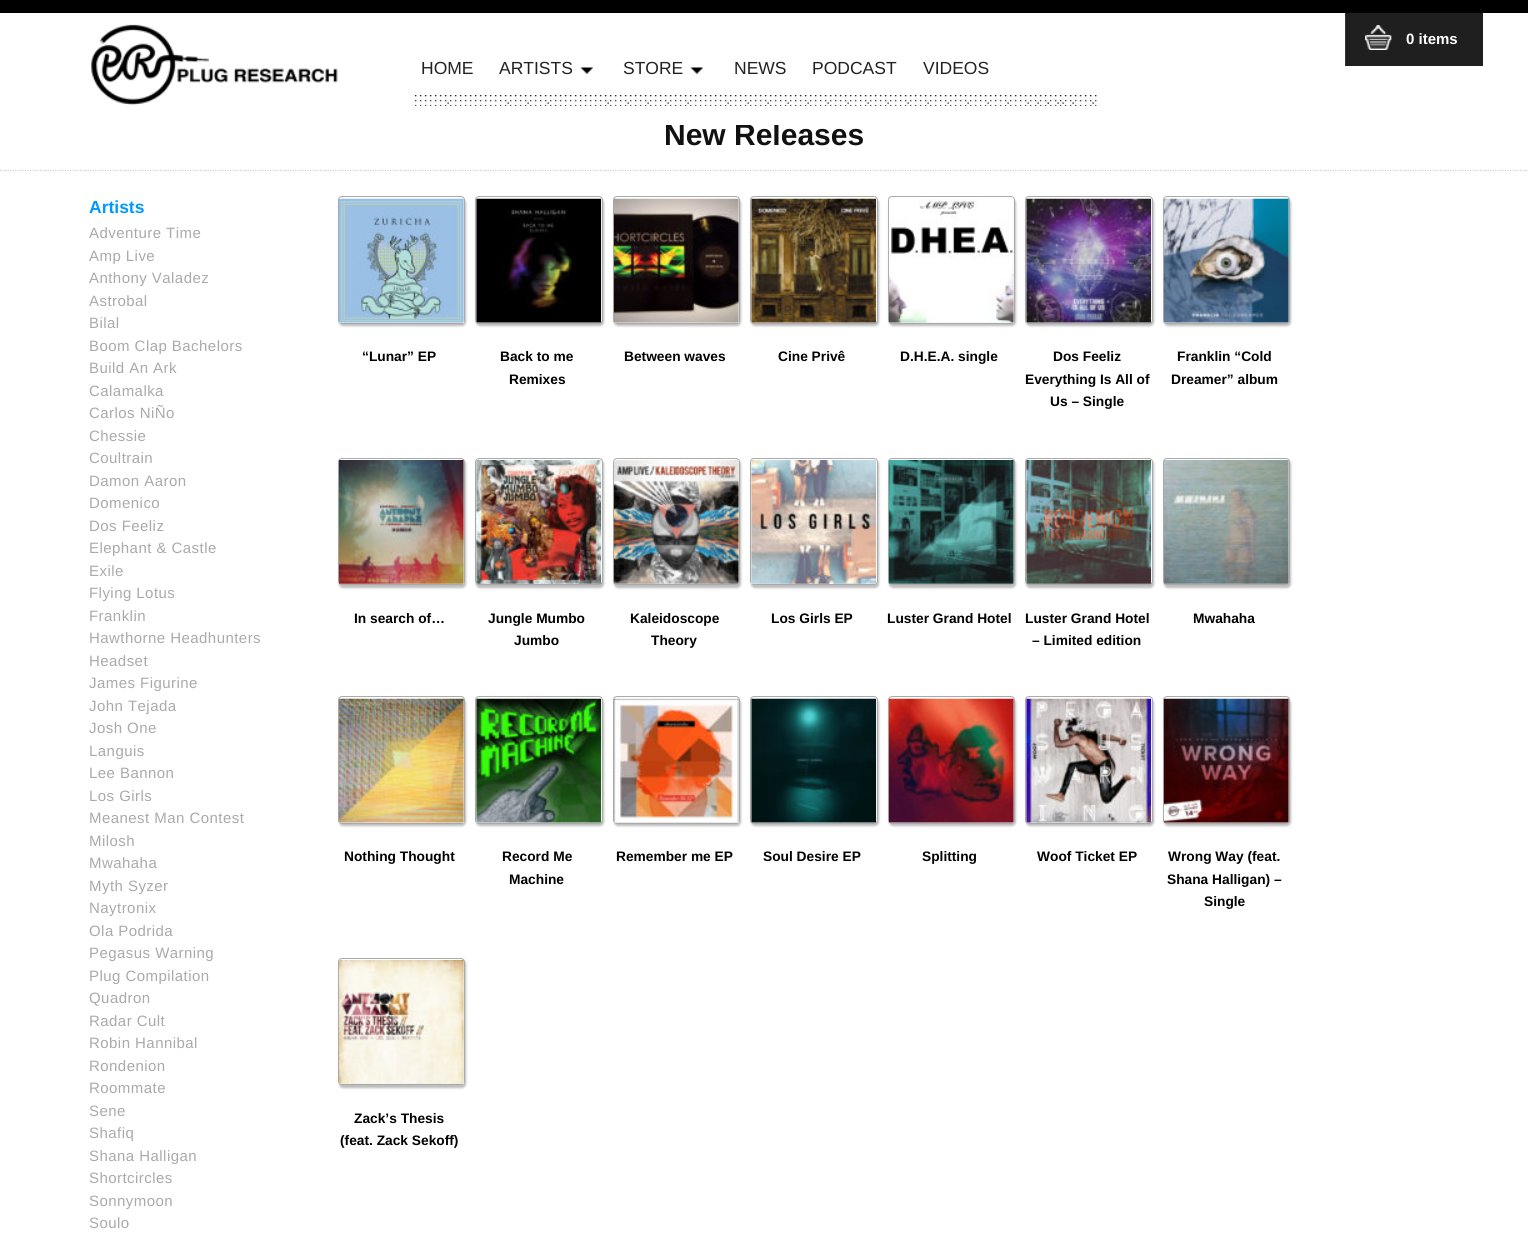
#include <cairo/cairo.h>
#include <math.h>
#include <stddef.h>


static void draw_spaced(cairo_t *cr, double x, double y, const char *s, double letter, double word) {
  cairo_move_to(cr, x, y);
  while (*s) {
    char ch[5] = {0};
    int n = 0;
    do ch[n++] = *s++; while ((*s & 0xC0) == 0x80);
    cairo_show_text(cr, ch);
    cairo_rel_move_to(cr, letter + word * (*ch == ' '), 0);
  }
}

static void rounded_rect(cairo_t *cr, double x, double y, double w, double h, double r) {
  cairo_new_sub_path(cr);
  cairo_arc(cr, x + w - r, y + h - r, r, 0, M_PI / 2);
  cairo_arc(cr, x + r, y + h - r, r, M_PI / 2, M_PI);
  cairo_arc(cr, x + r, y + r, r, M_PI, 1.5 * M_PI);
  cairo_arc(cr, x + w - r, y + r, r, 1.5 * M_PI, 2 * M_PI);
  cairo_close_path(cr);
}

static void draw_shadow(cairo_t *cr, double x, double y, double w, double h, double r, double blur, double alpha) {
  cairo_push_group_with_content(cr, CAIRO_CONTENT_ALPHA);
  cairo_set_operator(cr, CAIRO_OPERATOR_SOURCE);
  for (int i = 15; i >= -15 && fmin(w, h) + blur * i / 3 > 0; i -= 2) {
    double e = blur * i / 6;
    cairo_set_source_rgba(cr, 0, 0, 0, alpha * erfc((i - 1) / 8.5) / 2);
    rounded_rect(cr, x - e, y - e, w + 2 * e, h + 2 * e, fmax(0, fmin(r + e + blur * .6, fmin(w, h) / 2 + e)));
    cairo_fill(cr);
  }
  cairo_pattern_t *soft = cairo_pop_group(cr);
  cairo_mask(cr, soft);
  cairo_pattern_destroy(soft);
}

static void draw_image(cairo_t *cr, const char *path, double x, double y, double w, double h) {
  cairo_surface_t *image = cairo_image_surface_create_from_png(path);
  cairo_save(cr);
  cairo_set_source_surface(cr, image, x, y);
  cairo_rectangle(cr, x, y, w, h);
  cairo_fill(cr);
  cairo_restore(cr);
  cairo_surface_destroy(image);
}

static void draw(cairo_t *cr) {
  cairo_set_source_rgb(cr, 1, 1, 1);
  cairo_paint(cr);
  cairo_set_source_rgb(cr, 0, 0, 0);
  cairo_rectangle(cr, 0, 0, 1528, 13);
  cairo_fill(cr);
  cairo_set_source_rgb(cr, 31 / 255.0, 31 / 255.0, 31 / 255.0);
  cairo_rectangle(cr, 1346, 13, 137, 53);
  cairo_fill(cr);
  cairo_set_source_rgb(cr, 51 / 255.0, 51 / 255.0, 51 / 255.0);
  cairo_rectangle(cr, 1345, 13, 1, 53);
  cairo_fill(cr);
  draw_image(cr, "images/1.png", 1365, 25, 27, 25);
  draw_image(cr, "images/2.png", 90, 24, 248, 82);
  draw_image(cr, "images/3.png", 580, 67, 13, 7);
  draw_image(cr, "images/3.png", 690, 67, 13, 7);
  draw_image(cr, "images/4.png", 413, 95, 686, 11);
  cairo_new_path(cr);
  cairo_move_to(cr, 0, 170.5);
  cairo_line_to(cr, 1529, 170.5);
  cairo_set_source_rgb(cr, 208 / 255.0, 208 / 255.0, 208 / 255.0);
  cairo_set_line_width(cr, 1.2);
  cairo_set_dash(cr, (double[]){1.25, 1.25}, 2, 0);
  cairo_stroke(cr);
  cairo_set_source_rgb(cr, 189 / 255.0, 189 / 255.0, 189 / 255.0);
  draw_shadow(cr, 339, 199, 127, 127, 4, 1, 1);
  cairo_set_source_rgb(cr, 1, 1, 1);
  rounded_rect(cr, 338.5, 196.5, 126, 127, 3.5);
  cairo_fill_preserve(cr);
  cairo_set_source_rgb(cr, 170 / 255.0, 170 / 255.0, 170 / 255.0);
  cairo_set_line_width(cr, 1);
  cairo_set_dash(cr, NULL, 0, 0);
  cairo_stroke(cr);
  cairo_set_source_rgb(cr, 239 / 255.0, 239 / 255.0, 239 / 255.0);
  cairo_rectangle(cr, 339, 199, 125, 124);
  cairo_fill(cr);
  draw_image(cr, "images/5.png", 338, 198, 126, 125);
  cairo_set_source_rgb(cr, 189 / 255.0, 189 / 255.0, 189 / 255.0);
  draw_shadow(cr, 476, 199, 128, 127, 4, 1, 1);
  cairo_set_source_rgb(cr, 1, 1, 1);
  rounded_rect(cr, 475.5, 196.5, 127, 127, 3.5);
  cairo_fill_preserve(cr);
  cairo_set_source_rgb(cr, 170 / 255.0, 170 / 255.0, 170 / 255.0);
  cairo_stroke(cr);
  cairo_set_source_rgb(cr, 239 / 255.0, 239 / 255.0, 239 / 255.0);
  cairo_rectangle(cr, 476, 199, 125, 124);
  cairo_fill(cr);
  draw_image(cr, "images/6.png", 476, 198, 126, 125);
  cairo_set_source_rgb(cr, 189 / 255.0, 189 / 255.0, 189 / 255.0);
  draw_shadow(cr, 614, 199, 127, 127, 4, 1, 1);
  cairo_set_source_rgb(cr, 1, 1, 1);
  rounded_rect(cr, 613.5, 196.5, 126, 127, 3.5);
  cairo_fill_preserve(cr);
  cairo_set_source_rgb(cr, 170 / 255.0, 170 / 255.0, 170 / 255.0);
  cairo_stroke(cr);
  cairo_set_source_rgb(cr, 239 / 255.0, 239 / 255.0, 239 / 255.0);
  cairo_rectangle(cr, 614, 199, 125, 124);
  cairo_fill(cr);
  draw_image(cr, "images/7.png", 613, 198, 126, 125);
  cairo_set_source_rgb(cr, 189 / 255.0, 189 / 255.0, 189 / 255.0);
  draw_shadow(cr, 751, 199, 128, 127, 4, 1, 1);
  cairo_set_source_rgb(cr, 1, 1, 1);
  rounded_rect(cr, 750.5, 196.5, 127, 127, 3.5);
  cairo_fill_preserve(cr);
  cairo_set_source_rgb(cr, 170 / 255.0, 170 / 255.0, 170 / 255.0);
  cairo_stroke(cr);
  cairo_set_source_rgb(cr, 239 / 255.0, 239 / 255.0, 239 / 255.0);
  cairo_rectangle(cr, 751, 199, 125, 124);
  cairo_fill(cr);
  draw_image(cr, "images/8.png", 751, 198, 126, 125);
  cairo_set_source_rgb(cr, 189 / 255.0, 189 / 255.0, 189 / 255.0);
  draw_shadow(cr, 889, 199, 127, 127, 4, 1, 1);
  cairo_set_source_rgb(cr, 1, 1, 1);
  rounded_rect(cr, 888.5, 196.5, 126, 127, 3.5);
  cairo_fill_preserve(cr);
  cairo_set_source_rgb(cr, 170 / 255.0, 170 / 255.0, 170 / 255.0);
  cairo_stroke(cr);
  cairo_set_source_rgb(cr, 239 / 255.0, 239 / 255.0, 239 / 255.0);
  cairo_rectangle(cr, 889, 199, 125, 124);
  cairo_fill(cr);
  draw_image(cr, "images/9.png", 888, 198, 126, 125);
  cairo_set_source_rgb(cr, 189 / 255.0, 189 / 255.0, 189 / 255.0);
  draw_shadow(cr, 1026, 199, 128, 127, 4, 1, 1);
  cairo_set_source_rgb(cr, 1, 1, 1);
  rounded_rect(cr, 1025.5, 196.5, 127, 127, 3.5);
  cairo_fill_preserve(cr);
  cairo_set_source_rgb(cr, 170 / 255.0, 170 / 255.0, 170 / 255.0);
  cairo_stroke(cr);
  cairo_set_source_rgb(cr, 239 / 255.0, 239 / 255.0, 239 / 255.0);
  cairo_rectangle(cr, 1026, 199, 125, 124);
  cairo_fill(cr);
  draw_image(cr, "images/10.png", 1026, 198, 126, 125);
  cairo_set_source_rgb(cr, 189 / 255.0, 189 / 255.0, 189 / 255.0);
  draw_shadow(cr, 1164, 199, 127, 127, 4, 1, 1);
  cairo_set_source_rgb(cr, 1, 1, 1);
  rounded_rect(cr, 1163.5, 196.5, 126, 127, 3.5);
  cairo_fill_preserve(cr);
  cairo_set_source_rgb(cr, 170 / 255.0, 170 / 255.0, 170 / 255.0);
  cairo_stroke(cr);
  cairo_set_source_rgb(cr, 239 / 255.0, 239 / 255.0, 239 / 255.0);
  cairo_rectangle(cr, 1164, 199, 125, 124);
  cairo_fill(cr);
  draw_image(cr, "images/11.png", 1163, 198, 126, 125);
  cairo_set_source_rgb(cr, 189 / 255.0, 189 / 255.0, 189 / 255.0);
  draw_shadow(cr, 339, 460, 127, 128, 4, 1, 1);
  cairo_set_source_rgb(cr, 1, 1, 1);
  rounded_rect(cr, 338.5, 458.5, 126, 126, 3.5);
  cairo_fill_preserve(cr);
  cairo_set_source_rgb(cr, 170 / 255.0, 170 / 255.0, 170 / 255.0);
  cairo_stroke(cr);
  cairo_set_source_rgb(cr, 239 / 255.0, 239 / 255.0, 239 / 255.0);
  cairo_rectangle(cr, 339, 460, 125, 124);
  cairo_fill(cr);
  draw_image(cr, "images/12.png", 338, 460, 126, 124);
  cairo_set_source_rgb(cr, 189 / 255.0, 189 / 255.0, 189 / 255.0);
  draw_shadow(cr, 476, 460, 128, 128, 4, 1, 1);
  cairo_set_source_rgb(cr, 1, 1, 1);
  rounded_rect(cr, 475.5, 458.5, 127, 126, 3.5);
  cairo_fill_preserve(cr);
  cairo_set_source_rgb(cr, 170 / 255.0, 170 / 255.0, 170 / 255.0);
  cairo_stroke(cr);
  cairo_set_source_rgb(cr, 239 / 255.0, 239 / 255.0, 239 / 255.0);
  cairo_rectangle(cr, 476, 460, 125, 124);
  cairo_fill(cr);
  draw_image(cr, "images/13.png", 476, 460, 126, 124);
  cairo_set_source_rgb(cr, 189 / 255.0, 189 / 255.0, 189 / 255.0);
  draw_shadow(cr, 614, 460, 127, 128, 4, 1, 1);
  cairo_set_source_rgb(cr, 1, 1, 1);
  rounded_rect(cr, 613.5, 458.5, 126, 126, 3.5);
  cairo_fill_preserve(cr);
  cairo_set_source_rgb(cr, 170 / 255.0, 170 / 255.0, 170 / 255.0);
  cairo_stroke(cr);
  cairo_set_source_rgb(cr, 239 / 255.0, 239 / 255.0, 239 / 255.0);
  cairo_rectangle(cr, 614, 460, 125, 124);
  cairo_fill(cr);
  draw_image(cr, "images/14.png", 613, 460, 126, 124);
  cairo_set_source_rgb(cr, 189 / 255.0, 189 / 255.0, 189 / 255.0);
  draw_shadow(cr, 751, 460, 128, 128, 4, 1, 1);
  cairo_set_source_rgb(cr, 1, 1, 1);
  rounded_rect(cr, 750.5, 458.5, 127, 126, 3.5);
  cairo_fill_preserve(cr);
  cairo_set_source_rgb(cr, 170 / 255.0, 170 / 255.0, 170 / 255.0);
  cairo_stroke(cr);
  cairo_set_source_rgb(cr, 239 / 255.0, 239 / 255.0, 239 / 255.0);
  cairo_rectangle(cr, 751, 460, 125, 124);
  cairo_fill(cr);
  draw_image(cr, "images/15.png", 751, 460, 126, 124);
  cairo_set_source_rgb(cr, 189 / 255.0, 189 / 255.0, 189 / 255.0);
  draw_shadow(cr, 889, 460, 127, 128, 4, 1, 1);
  cairo_set_source_rgb(cr, 1, 1, 1);
  rounded_rect(cr, 888.5, 458.5, 126, 126, 3.5);
  cairo_fill_preserve(cr);
  cairo_set_source_rgb(cr, 170 / 255.0, 170 / 255.0, 170 / 255.0);
  cairo_stroke(cr);
  cairo_set_source_rgb(cr, 239 / 255.0, 239 / 255.0, 239 / 255.0);
  cairo_rectangle(cr, 889, 460, 125, 124);
  cairo_fill(cr);
  draw_image(cr, "images/16.png", 888, 460, 126, 124);
  cairo_set_source_rgb(cr, 189 / 255.0, 189 / 255.0, 189 / 255.0);
  draw_shadow(cr, 1026, 460, 128, 128, 4, 1, 1);
  cairo_set_source_rgb(cr, 1, 1, 1);
  rounded_rect(cr, 1025.5, 458.5, 127, 126, 3.5);
  cairo_fill_preserve(cr);
  cairo_set_source_rgb(cr, 170 / 255.0, 170 / 255.0, 170 / 255.0);
  cairo_stroke(cr);
  cairo_set_source_rgb(cr, 239 / 255.0, 239 / 255.0, 239 / 255.0);
  cairo_rectangle(cr, 1026, 460, 125, 124);
  cairo_fill(cr);
  draw_image(cr, "images/17.png", 1026, 460, 126, 124);
  cairo_set_source_rgb(cr, 189 / 255.0, 189 / 255.0, 189 / 255.0);
  draw_shadow(cr, 1164, 460, 127, 128, 4, 1, 1);
  cairo_set_source_rgb(cr, 1, 1, 1);
  rounded_rect(cr, 1163.5, 458.5, 126, 126, 3.5);
  cairo_fill_preserve(cr);
  cairo_set_source_rgb(cr, 170 / 255.0, 170 / 255.0, 170 / 255.0);
  cairo_stroke(cr);
  cairo_set_source_rgb(cr, 239 / 255.0, 239 / 255.0, 239 / 255.0);
  cairo_rectangle(cr, 1164, 460, 125, 124);
  cairo_fill(cr);
  draw_image(cr, "images/18.png", 1163, 460, 126, 124);
  cairo_set_source_rgb(cr, 189 / 255.0, 189 / 255.0, 189 / 255.0);
  draw_shadow(cr, 339, 699, 127, 127, 4, 1, 1);
  cairo_set_source_rgb(cr, 1, 1, 1);
  rounded_rect(cr, 338.5, 696.5, 126, 127, 3.5);
  cairo_fill_preserve(cr);
  cairo_set_source_rgb(cr, 170 / 255.0, 170 / 255.0, 170 / 255.0);
  cairo_stroke(cr);
  cairo_set_source_rgb(cr, 239 / 255.0, 239 / 255.0, 239 / 255.0);
  cairo_rectangle(cr, 339, 699, 125, 124);
  cairo_fill(cr);
  draw_image(cr, "images/19.png", 338, 698, 126, 125);
  cairo_set_source_rgb(cr, 189 / 255.0, 189 / 255.0, 189 / 255.0);
  draw_shadow(cr, 476, 699, 128, 127, 4, 1, 1);
  cairo_set_source_rgb(cr, 1, 1, 1);
  rounded_rect(cr, 475.5, 696.5, 127, 127, 3.5);
  cairo_fill_preserve(cr);
  cairo_set_source_rgb(cr, 170 / 255.0, 170 / 255.0, 170 / 255.0);
  cairo_stroke(cr);
  cairo_set_source_rgb(cr, 239 / 255.0, 239 / 255.0, 239 / 255.0);
  cairo_rectangle(cr, 476, 699, 125, 124);
  cairo_fill(cr);
  draw_image(cr, "images/20.png", 476, 698, 126, 125);
  cairo_set_source_rgb(cr, 189 / 255.0, 189 / 255.0, 189 / 255.0);
  draw_shadow(cr, 614, 699, 127, 127, 4, 1, 1);
  cairo_set_source_rgb(cr, 1, 1, 1);
  rounded_rect(cr, 613.5, 696.5, 126, 127, 3.5);
  cairo_fill_preserve(cr);
  cairo_set_source_rgb(cr, 170 / 255.0, 170 / 255.0, 170 / 255.0);
  cairo_stroke(cr);
  cairo_set_source_rgb(cr, 239 / 255.0, 239 / 255.0, 239 / 255.0);
  cairo_rectangle(cr, 614, 699, 125, 124);
  cairo_fill(cr);
  draw_image(cr, "images/21.png", 614, 698, 125, 125);
  cairo_set_source_rgb(cr, 189 / 255.0, 189 / 255.0, 189 / 255.0);
  draw_shadow(cr, 751, 699, 128, 127, 4, 1, 1);
  cairo_set_source_rgb(cr, 1, 1, 1);
  rounded_rect(cr, 750.5, 696.5, 127, 127, 3.5);
  cairo_fill_preserve(cr);
  cairo_set_source_rgb(cr, 170 / 255.0, 170 / 255.0, 170 / 255.0);
  cairo_stroke(cr);
  cairo_set_source_rgb(cr, 239 / 255.0, 239 / 255.0, 239 / 255.0);
  cairo_rectangle(cr, 751, 699, 125, 124);
  cairo_fill(cr);
  draw_image(cr, "images/22.png", 751, 698, 126, 125);
  cairo_set_source_rgb(cr, 189 / 255.0, 189 / 255.0, 189 / 255.0);
  draw_shadow(cr, 889, 699, 127, 127, 4, 1, 1);
  cairo_set_source_rgb(cr, 1, 1, 1);
  rounded_rect(cr, 888.5, 696.5, 126, 127, 3.5);
  cairo_fill_preserve(cr);
  cairo_set_source_rgb(cr, 170 / 255.0, 170 / 255.0, 170 / 255.0);
  cairo_stroke(cr);
  cairo_set_source_rgb(cr, 239 / 255.0, 239 / 255.0, 239 / 255.0);
  cairo_rectangle(cr, 889, 699, 125, 124);
  cairo_fill(cr);
  draw_image(cr, "images/23.png", 888, 698, 126, 125);
  cairo_set_source_rgb(cr, 189 / 255.0, 189 / 255.0, 189 / 255.0);
  draw_shadow(cr, 1026, 699, 128, 127, 4, 1, 1);
  cairo_set_source_rgb(cr, 1, 1, 1);
  rounded_rect(cr, 1025.5, 696.5, 127, 127, 3.5);
  cairo_fill_preserve(cr);
  cairo_set_source_rgb(cr, 170 / 255.0, 170 / 255.0, 170 / 255.0);
  cairo_stroke(cr);
  cairo_set_source_rgb(cr, 239 / 255.0, 239 / 255.0, 239 / 255.0);
  cairo_rectangle(cr, 1026, 699, 125, 124);
  cairo_fill(cr);
  draw_image(cr, "images/24.png", 1026, 698, 126, 125);
  cairo_set_source_rgb(cr, 189 / 255.0, 189 / 255.0, 189 / 255.0);
  draw_shadow(cr, 1164, 699, 127, 127, 4, 1, 1);
  cairo_set_source_rgb(cr, 1, 1, 1);
  rounded_rect(cr, 1163.5, 696.5, 126, 127, 3.5);
  cairo_fill_preserve(cr);
  cairo_set_source_rgb(cr, 170 / 255.0, 170 / 255.0, 170 / 255.0);
  cairo_stroke(cr);
  cairo_set_source_rgb(cr, 239 / 255.0, 239 / 255.0, 239 / 255.0);
  cairo_rectangle(cr, 1164, 699, 125, 124);
  cairo_fill(cr);
  draw_image(cr, "images/25.png", 1163, 698, 126, 125);
  cairo_set_source_rgb(cr, 189 / 255.0, 189 / 255.0, 189 / 255.0);
  draw_shadow(cr, 339, 960, 127, 128, 4, 1, 1);
  cairo_set_source_rgb(cr, 1, 1, 1);
  rounded_rect(cr, 338.5, 958.5, 126, 126, 3.5);
  cairo_fill_preserve(cr);
  cairo_set_source_rgb(cr, 170 / 255.0, 170 / 255.0, 170 / 255.0);
  cairo_stroke(cr);
  cairo_set_source_rgb(cr, 239 / 255.0, 239 / 255.0, 239 / 255.0);
  cairo_rectangle(cr, 339, 960, 125, 124);
  cairo_fill(cr);
  draw_image(cr, "images/26.png", 338, 960, 126, 124);
  cairo_select_font_face(cr, "Liberation Sans", CAIRO_FONT_SLANT_NORMAL, CAIRO_FONT_WEIGHT_BOLD);
  cairo_set_font_size(cr, 15);
  cairo_set_source_rgb(cr, 1, 1, 1);
  cairo_move_to(cr, 1406, 44);
  cairo_show_text(cr, "0 items");
  cairo_select_font_face(cr, "Liberation Sans", CAIRO_FONT_SLANT_NORMAL, CAIRO_FONT_WEIGHT_NORMAL);
  cairo_set_font_size(cr, 17.5);
  cairo_set_source_rgb(cr, 34 / 255.0, 34 / 255.0, 34 / 255.0);
  cairo_move_to(cr, 421, 74);
  cairo_show_text(cr, "HOME");
  cairo_move_to(cr, 499, 74);
  cairo_show_text(cr, "ARTISTS");
  cairo_move_to(cr, 623, 74);
  cairo_show_text(cr, "STORE");
  cairo_move_to(cr, 734, 74);
  cairo_show_text(cr, "NEWS");
  cairo_move_to(cr, 812, 74);
  cairo_show_text(cr, "PODCAST");
  cairo_move_to(cr, 923, 74);
  cairo_show_text(cr, "VIDEOS");
  cairo_select_font_face(cr, "Liberation Sans", CAIRO_FONT_SLANT_NORMAL, CAIRO_FONT_WEIGHT_BOLD);
  cairo_set_font_size(cr, 30);
  cairo_set_source_rgb(cr, 17 / 255.0, 17 / 255.0, 17 / 255.0);
  cairo_move_to(cr, 664, 145);
  cairo_show_text(cr, "New Releases");
  cairo_set_source_rgb(cr, 1, 1, 1);
  cairo_rectangle(cr, 666, 123, 113, 2);
  cairo_fill(cr);
  cairo_set_font_size(cr, 17.5);
  cairo_set_source_rgb(cr, 0, 153 / 255.0, 1);
  cairo_move_to(cr, 89, 213);
  cairo_show_text(cr, "Artists");
  cairo_select_font_face(cr, "Liberation Sans", CAIRO_FONT_SLANT_NORMAL, CAIRO_FONT_WEIGHT_NORMAL);
  cairo_set_font_size(cr, 15);
  cairo_set_source_rgb(cr, 170 / 255.0, 170 / 255.0, 170 / 255.0);
  draw_spaced(cr, 89, 238, "Adventure Time", 0.45, 0);
  draw_spaced(cr, 89, 261, "Amp Live", 0.45, 0);
  draw_spaced(cr, 89, 283, "Anthony Valadez", 0.45, 0);
  draw_spaced(cr, 89, 306, "Astrobal", 0.45, 0);
  draw_spaced(cr, 89, 328, "Bilal", 0.45, 0);
  draw_spaced(cr, 89, 351, "Boom Clap Bachelors", 0.45, 0);
  draw_spaced(cr, 89, 373, "Build An Ark", 0.45, 0);
  draw_spaced(cr, 89, 396, "Calamalka", 0.45, 0);
  draw_spaced(cr, 89, 418, "Carlos NiÑo", 0.45, 0);
  draw_spaced(cr, 89, 441, "Chessie", 0.45, 0);
  draw_spaced(cr, 89, 463, "Coultrain", 0.45, 0);
  draw_spaced(cr, 89, 486, "Damon Aaron", 0.45, 0);
  draw_spaced(cr, 89, 508, "Domenico", 0.45, 0);
  draw_spaced(cr, 89, 531, "Dos Feeliz", 0.45, 0);
  draw_spaced(cr, 89, 553, "Elephant & Castle", 0.45, 0);
  draw_spaced(cr, 89, 576, "Exile", 0.45, 0);
  draw_spaced(cr, 89, 598, "Flying Lotus", 0.45, 0);
  draw_spaced(cr, 89, 621, "Franklin", 0.45, 0);
  draw_spaced(cr, 89, 643, "Hawthorne Headhunters", 0.45, 0);
  draw_spaced(cr, 89, 666, "Headset", 0.45, 0);
  draw_spaced(cr, 89, 688, "James Figurine", 0.45, 0);
  draw_spaced(cr, 89, 711, "John Tejada", 0.45, 0);
  draw_spaced(cr, 89, 733, "Josh One", 0.45, 0);
  draw_spaced(cr, 89, 756, "Languis", 0.45, 0);
  draw_spaced(cr, 89, 778, "Lee Bannon", 0.45, 0);
  draw_spaced(cr, 89, 801, "Los Girls", 0.45, 0);
  draw_spaced(cr, 89, 823, "Meanest Man Contest", 0.45, 0);
  draw_spaced(cr, 89, 846, "Milosh", 0.45, 0);
  draw_spaced(cr, 89, 868, "Mwahaha", 0.45, 0);
  draw_spaced(cr, 89, 891, "Myth Syzer", 0.45, 0);
  draw_spaced(cr, 89, 913, "Naytronix", 0.45, 0);
  draw_spaced(cr, 89, 936, "Ola Podrida", 0.45, 0);
  draw_spaced(cr, 89, 958, "Pegasus Warning", 0.45, 0);
  draw_spaced(cr, 89, 981, "Plug Compilation", 0.45, 0);
  draw_spaced(cr, 89, 1003, "Quadron", 0.45, 0);
  draw_spaced(cr, 89, 1026, "Radar Cult", 0.45, 0);
  draw_spaced(cr, 89, 1048, "Robin Hannibal", 0.45, 0);
  draw_spaced(cr, 89, 1071, "Rondenion", 0.45, 0);
  draw_spaced(cr, 89, 1093, "Roommate", 0.45, 0);
  draw_spaced(cr, 89, 1116, "Sene", 0.45, 0);
  draw_spaced(cr, 89, 1138, "Shafiq", 0.45, 0);
  draw_spaced(cr, 89, 1161, "Shana Halligan", 0.45, 0);
  draw_spaced(cr, 89, 1183, "Shortcircles", 0.45, 0);
  draw_spaced(cr, 89, 1206, "Sonnymoon", 0.45, 0);
  draw_spaced(cr, 89, 1228, "Soulo", 0.45, 0);
  cairo_select_font_face(cr, "Liberation Sans", CAIRO_FONT_SLANT_NORMAL, CAIRO_FONT_WEIGHT_BOLD);
  cairo_set_font_size(cr, 13.75);
  cairo_set_source_rgb(cr, 0, 0, 0);
  cairo_move_to(cr, 362, 361);
  cairo_show_text(cr, "“Lunar” EP");
  cairo_move_to(cr, 500, 361);
  cairo_show_text(cr, "Back to me");
  cairo_move_to(cr, 509, 384);
  cairo_show_text(cr, "Remixes");
  cairo_move_to(cr, 624, 361);
  cairo_show_text(cr, "Between waves");
  cairo_move_to(cr, 778, 361);
  cairo_show_text(cr, "Cine Privê");
  cairo_move_to(cr, 900, 361);
  cairo_show_text(cr, "D.H.E.A. single");
  cairo_move_to(cr, 1053, 361);
  cairo_show_text(cr, "Dos Feeliz");
  cairo_move_to(cr, 1025, 384);
  cairo_show_text(cr, "Everything Is All of");
  cairo_move_to(cr, 1050, 406);
  cairo_show_text(cr, "Us – Single");
  cairo_move_to(cr, 1177, 361);
  cairo_show_text(cr, "Franklin “Cold");
  cairo_move_to(cr, 1171, 384);
  cairo_show_text(cr, "Dreamer” album");
  cairo_move_to(cr, 354, 623);
  cairo_show_text(cr, "In search of…");
  cairo_move_to(cr, 488, 623);
  cairo_show_text(cr, "Jungle Mumbo");
  cairo_move_to(cr, 514, 645);
  cairo_show_text(cr, "Jumbo");
  cairo_move_to(cr, 630, 623);
  cairo_show_text(cr, "Kaleidoscope");
  cairo_move_to(cr, 651, 645);
  cairo_show_text(cr, "Theory");
  cairo_move_to(cr, 771, 623);
  cairo_show_text(cr, "Los Girls EP");
  cairo_move_to(cr, 887, 623);
  cairo_show_text(cr, "Luster Grand Hotel");
  cairo_move_to(cr, 1025, 623);
  cairo_show_text(cr, "Luster Grand Hotel");
  cairo_move_to(cr, 1032, 645);
  cairo_show_text(cr, "– Limited edition");
  cairo_move_to(cr, 1193, 623);
  cairo_show_text(cr, "Mwahaha");
  cairo_move_to(cr, 344, 861);
  cairo_show_text(cr, "Nothing Thought");
  cairo_move_to(cr, 502, 861);
  cairo_show_text(cr, "Record Me");
  cairo_move_to(cr, 509, 884);
  cairo_show_text(cr, "Machine");
  cairo_move_to(cr, 616, 861);
  cairo_show_text(cr, "Remember me EP");
  cairo_move_to(cr, 763, 861);
  cairo_show_text(cr, "Soul Desire EP");
  cairo_move_to(cr, 922, 861);
  cairo_show_text(cr, "Splitting");
  cairo_move_to(cr, 1037, 861);
  cairo_show_text(cr, "Woof Ticket EP");
  cairo_move_to(cr, 1168, 861);
  cairo_show_text(cr, "Wrong Way (feat.");
  cairo_move_to(cr, 1167, 884);
  cairo_show_text(cr, "Shana Halligan) –");
  cairo_move_to(cr, 1204, 906);
  cairo_show_text(cr, "Single");
  cairo_move_to(cr, 354, 1123);
  cairo_show_text(cr, "Zack’s Thesis");
  cairo_move_to(cr, 340, 1145);
  cairo_show_text(cr, "(feat. Zack Sekoff)");
}

int main(void) {
  cairo_surface_t *surface = cairo_image_surface_create(CAIRO_FORMAT_RGB24, 1528, 1242);
  cairo_t *cr = cairo_create(surface);
  cairo_font_options_t *options = cairo_font_options_create();
  cairo_font_options_set_hint_metrics(options, CAIRO_HINT_METRICS_OFF);
  cairo_font_options_set_hint_style(options, CAIRO_HINT_STYLE_NONE);
  cairo_set_font_options(cr, options);
  cairo_set_miter_limit(cr, 4);
  draw(cr);
  cairo_surface_write_to_png(surface, "out.png");
  cairo_font_options_destroy(options);
  cairo_destroy(cr);
  cairo_surface_destroy(surface);
  return 0;
}
